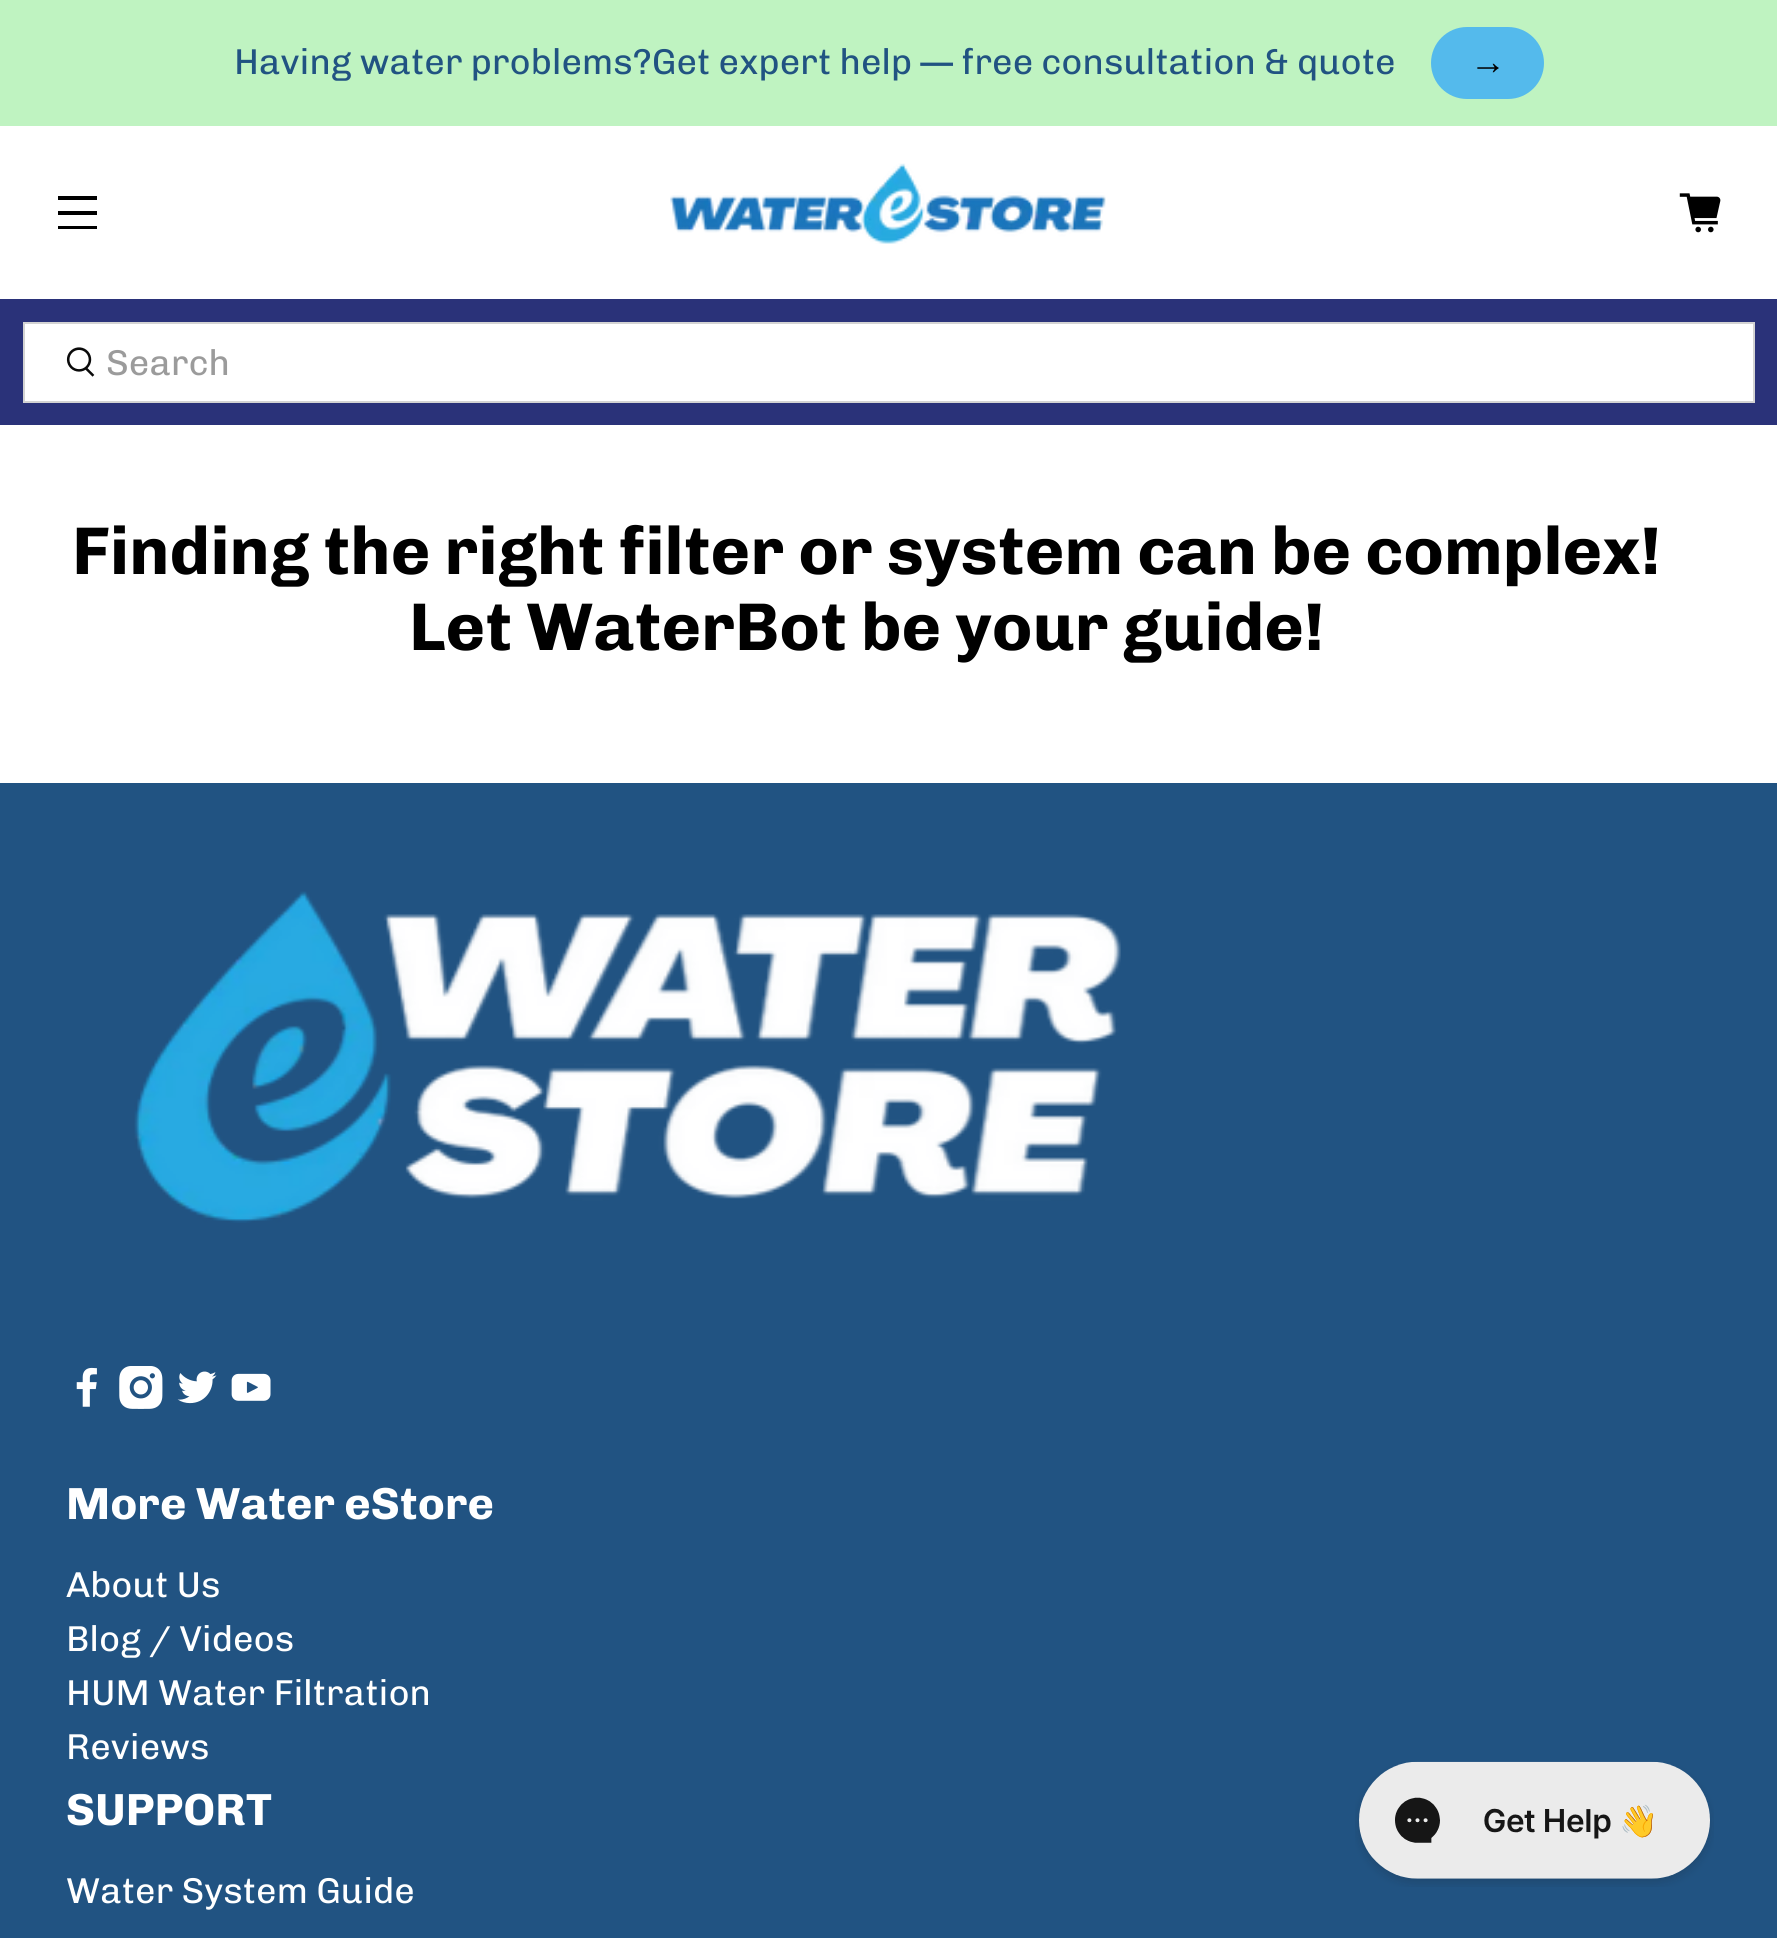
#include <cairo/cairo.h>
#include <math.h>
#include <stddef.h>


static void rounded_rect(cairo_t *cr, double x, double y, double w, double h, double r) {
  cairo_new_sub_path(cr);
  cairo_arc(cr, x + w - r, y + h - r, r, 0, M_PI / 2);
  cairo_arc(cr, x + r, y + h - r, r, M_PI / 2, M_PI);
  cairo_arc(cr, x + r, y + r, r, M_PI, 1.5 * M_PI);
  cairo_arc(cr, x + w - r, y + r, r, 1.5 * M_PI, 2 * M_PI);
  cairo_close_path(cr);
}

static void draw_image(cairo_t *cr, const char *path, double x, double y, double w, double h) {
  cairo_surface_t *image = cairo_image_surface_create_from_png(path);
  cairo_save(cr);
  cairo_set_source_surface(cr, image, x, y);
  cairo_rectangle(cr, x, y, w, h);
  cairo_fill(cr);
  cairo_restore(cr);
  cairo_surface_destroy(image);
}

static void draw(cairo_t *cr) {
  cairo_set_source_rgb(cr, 1, 1, 1);
  cairo_paint(cr);
  cairo_set_source_rgb(cr, 191 / 255.0, 243 / 255.0, 193 / 255.0);
  cairo_rectangle(cr, 0, 0, 1777, 126);
  cairo_fill(cr);
  cairo_set_source_rgb(cr, 84 / 255.0, 186 / 255.0, 236 / 255.0);
  rounded_rect(cr, 1431, 27, 113, 72, 36);
  cairo_fill(cr);
  cairo_set_source_rgb(cr, 0, 0, 0);
  cairo_rectangle(cr, 58, 196, 39, 4);
  cairo_fill(cr);
  cairo_rectangle(cr, 58, 211, 39, 4);
  cairo_fill(cr);
  cairo_rectangle(cr, 58, 226, 39, 3);
  cairo_fill(cr);
  draw_image(cr, "images/1.png", 670, 163, 436, 81);
  draw_image(cr, "images/2.png", 1679, 193, 42, 40);
  cairo_set_source_rgb(cr, 42 / 255.0, 50 / 255.0, 121 / 255.0);
  cairo_rectangle(cr, 0, 299, 1777, 126);
  cairo_fill(cr);
  cairo_set_source_rgb(cr, 1, 1, 1);
  cairo_rectangle(cr, 24, 323, 1730, 79);
  cairo_fill_preserve(cr);
  cairo_set_source_rgb(cr, 211 / 255.0, 211 / 255.0, 211 / 255.0);
  cairo_stroke(cr);
  draw_image(cr, "images/3.png", 66, 347, 29, 30);
  cairo_set_source_rgb(cr, 33 / 255.0, 83 / 255.0, 130 / 255.0);
  cairo_rectangle(cr, 0, 783, 1777, 1155);
  cairo_fill(cr);
  draw_image(cr, "images/4.png", 134, 891, 987, 332);
  draw_image(cr, "images/5.png", 76, 1367, 21, 40);
  draw_image(cr, "images/6.png", 119, 1366, 44, 43);
  draw_image(cr, "images/7.png", 177, 1371, 40, 33);
  draw_image(cr, "images/8.png", 231, 1373, 40, 28);
  draw_image(cr, "images/9.png", 1355, 1761, 359, 126);
  cairo_select_font_face(cr, "Chivo", CAIRO_FONT_SLANT_NORMAL, CAIRO_FONT_WEIGHT_NORMAL);
  cairo_set_font_size(cr, 36);
  cairo_move_to(cr, 234, 74);
  cairo_show_text(cr, "Having water problems?Get expert help — free consultation & quote");
  cairo_select_font_face(cr, "Liberation Sans", CAIRO_FONT_SLANT_NORMAL, CAIRO_FONT_WEIGHT_NORMAL);
  cairo_set_source_rgb(cr, 0, 0, 0);
  cairo_move_to(cr, 1470, 74);
  cairo_show_text(cr, "→");
  cairo_select_font_face(cr, "Chivo", CAIRO_FONT_SLANT_NORMAL, CAIRO_FONT_WEIGHT_NORMAL);
  cairo_set_source_rgb(cr, 155 / 255.0, 155 / 255.0, 155 / 255.0);
  cairo_move_to(cr, 106, 375);
  cairo_show_text(cr, "Search");
  cairo_select_font_face(cr, "Chivo", CAIRO_FONT_SLANT_NORMAL, CAIRO_FONT_WEIGHT_BOLD);
  cairo_set_font_size(cr, 67.5);
  cairo_set_source_rgb(cr, 0, 0, 0);
  cairo_move_to(cr, 72, 574);
  cairo_show_text(cr, "Finding the right filter or system can be complex!");
  cairo_move_to(cr, 409, 650);
  cairo_show_text(cr, "Let WaterBot be your guide!");
  cairo_set_font_size(cr, 45);
  cairo_set_source_rgb(cr, 1, 1, 1);
  cairo_move_to(cr, 66, 1519);
  cairo_show_text(cr, "More Water eStore");
  cairo_select_font_face(cr, "Chivo", CAIRO_FONT_SLANT_NORMAL, CAIRO_FONT_WEIGHT_NORMAL);
  cairo_set_font_size(cr, 36);
  cairo_move_to(cr, 66, 1597);
  cairo_show_text(cr, "About Us");
  cairo_move_to(cr, 66, 1651);
  cairo_show_text(cr, "Blog / Videos");
  cairo_move_to(cr, 66, 1705);
  cairo_show_text(cr, "HUM Water Filtration");
  cairo_move_to(cr, 66, 1759);
  cairo_show_text(cr, "Reviews");
  cairo_select_font_face(cr, "Chivo", CAIRO_FONT_SLANT_NORMAL, CAIRO_FONT_WEIGHT_BOLD);
  cairo_set_font_size(cr, 45);
  cairo_move_to(cr, 66, 1825);
  cairo_show_text(cr, "SUPPORT");
  cairo_select_font_face(cr, "Chivo", CAIRO_FONT_SLANT_NORMAL, CAIRO_FONT_WEIGHT_NORMAL);
  cairo_set_font_size(cr, 36);
  cairo_move_to(cr, 66, 1903);
  cairo_show_text(cr, "Water System Guide");
}

int main(void) {
  cairo_surface_t *surface = cairo_image_surface_create(CAIRO_FORMAT_RGB24, 1777, 1938);
  cairo_t *cr = cairo_create(surface);
  cairo_font_options_t *options = cairo_font_options_create();
  cairo_font_options_set_hint_metrics(options, CAIRO_HINT_METRICS_OFF);
  cairo_font_options_set_hint_style(options, CAIRO_HINT_STYLE_NONE);
  cairo_set_font_options(cr, options);
  cairo_set_miter_limit(cr, 4);
  draw(cr);
  cairo_surface_write_to_png(surface, "out.png");
  cairo_font_options_destroy(options);
  cairo_destroy(cr);
  cairo_surface_destroy(surface);
  return 0;
}
